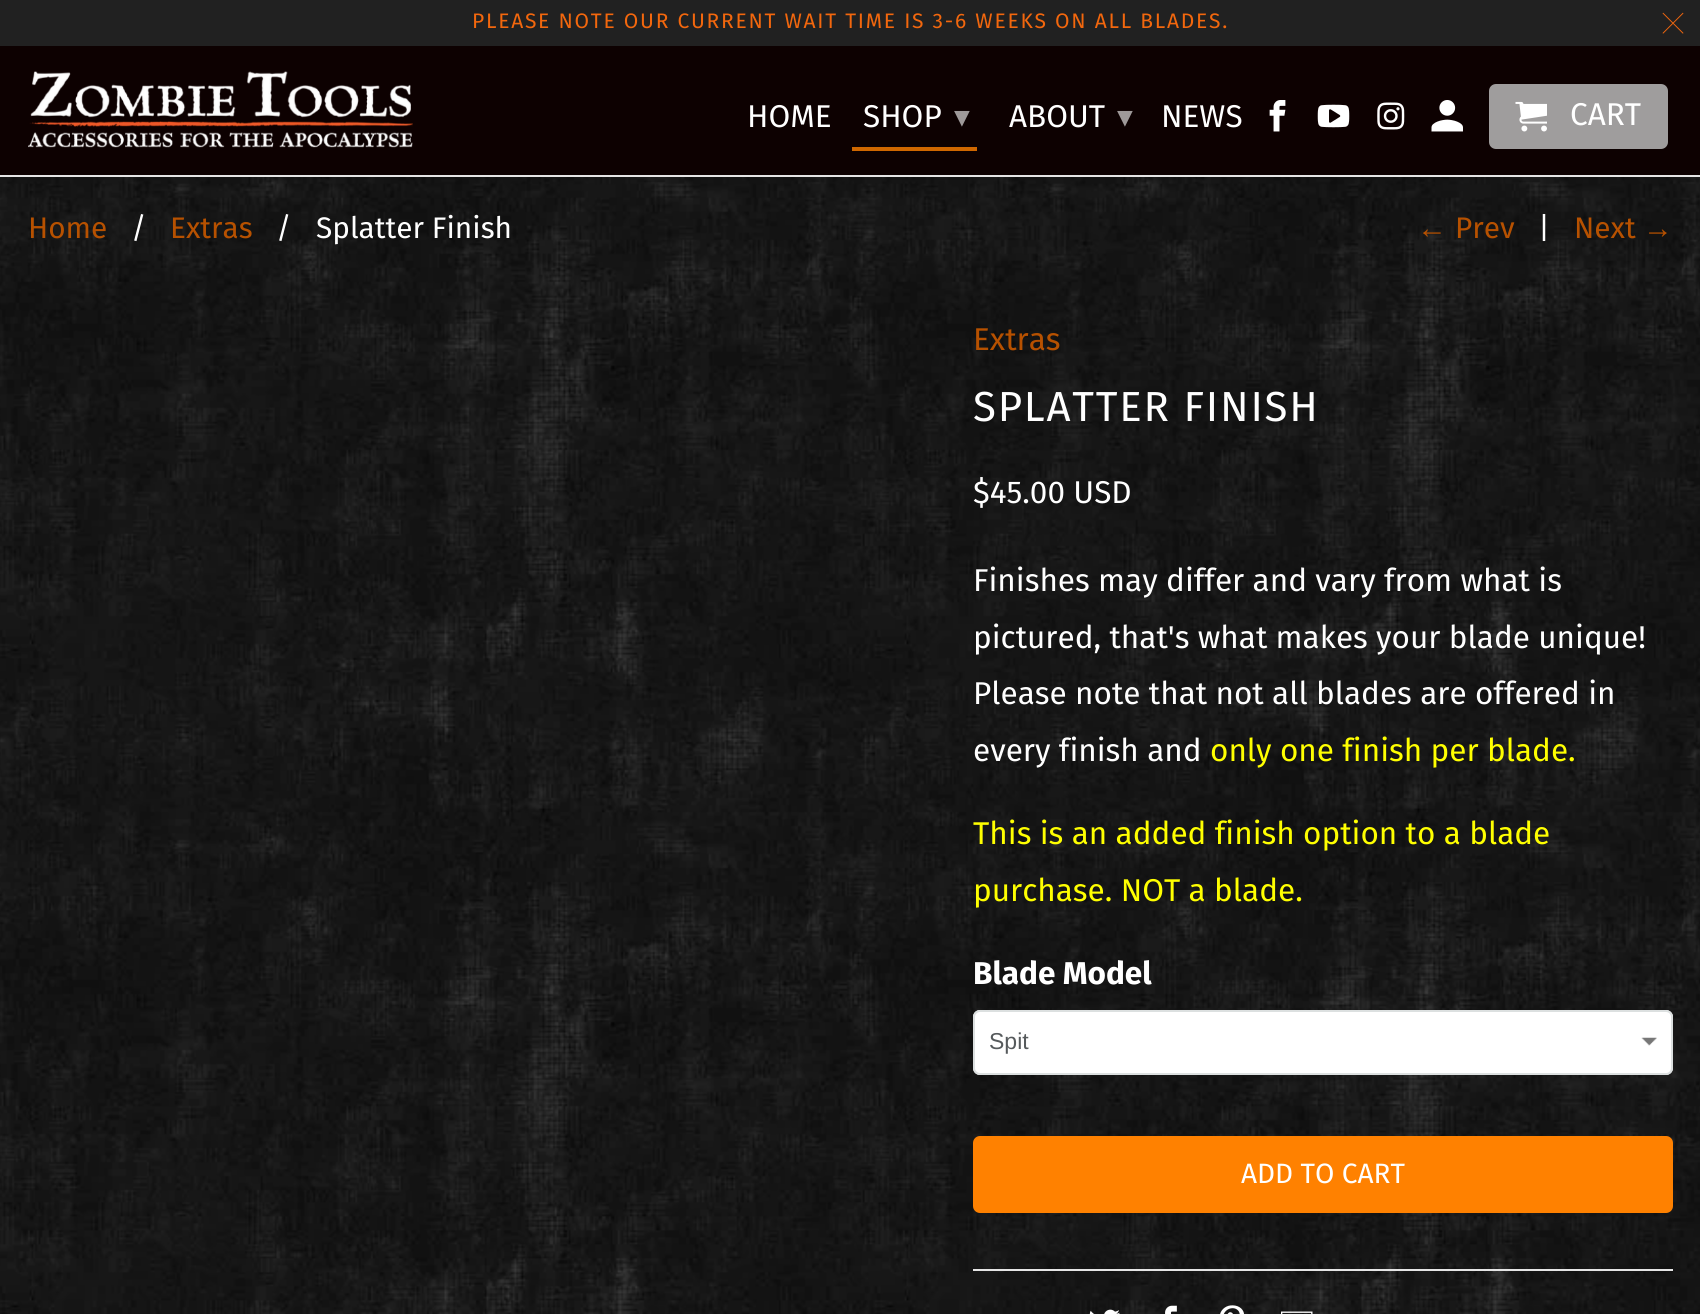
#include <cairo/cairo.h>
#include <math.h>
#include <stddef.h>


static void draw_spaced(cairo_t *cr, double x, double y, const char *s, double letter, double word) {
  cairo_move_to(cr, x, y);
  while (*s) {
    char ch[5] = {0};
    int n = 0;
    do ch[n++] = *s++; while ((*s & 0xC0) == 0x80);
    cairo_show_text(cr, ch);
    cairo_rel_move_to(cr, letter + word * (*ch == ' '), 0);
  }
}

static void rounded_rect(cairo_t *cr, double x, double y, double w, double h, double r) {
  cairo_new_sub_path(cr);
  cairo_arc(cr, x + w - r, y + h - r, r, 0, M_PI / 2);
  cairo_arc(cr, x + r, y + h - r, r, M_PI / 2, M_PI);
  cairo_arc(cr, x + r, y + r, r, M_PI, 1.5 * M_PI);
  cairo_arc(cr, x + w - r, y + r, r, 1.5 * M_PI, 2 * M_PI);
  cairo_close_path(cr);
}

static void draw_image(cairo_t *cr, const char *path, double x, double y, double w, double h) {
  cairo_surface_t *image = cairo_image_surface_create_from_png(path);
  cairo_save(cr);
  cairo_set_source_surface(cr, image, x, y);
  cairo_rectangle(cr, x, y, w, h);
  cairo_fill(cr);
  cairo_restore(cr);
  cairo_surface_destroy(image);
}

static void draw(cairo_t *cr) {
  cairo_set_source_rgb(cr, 1, 1, 1);
  cairo_paint(cr);
  cairo_set_source_rgb(cr, 13 / 255.0, 1 / 255.0, 1 / 255.0);
  cairo_rectangle(cr, 0, 46, 1700, 129);
  cairo_fill(cr);
  cairo_set_source_rgb(cr, 229 / 255.0, 229 / 255.0, 229 / 255.0);
  cairo_rectangle(cr, 0, 175, 1700, 2);
  cairo_fill(cr);
  cairo_set_source_rgb(cr, 33 / 255.0, 33 / 255.0, 33 / 255.0);
  cairo_rectangle(cr, 0, 0, 1700, 46);
  cairo_fill(cr);
  draw_image(cr, "images/1.png", 1662, 12, 22, 22);
  draw_image(cr, "images/2.png", 28, 71, 385, 77);
  cairo_set_source_rgb(cr, 207 / 255.0, 103 / 255.0, 0);
  cairo_rectangle(cr, 852, 147, 125, 4);
  cairo_fill(cr);
  draw_image(cr, "images/3.png", 1269, 100, 17, 32);
  draw_image(cr, "images/4.png", 1317, 104, 33, 24);
  draw_image(cr, "images/5.png", 1377, 102, 28, 28);
  draw_image(cr, "images/6.png", 1431, 100, 32, 32);
  cairo_set_source_rgb(cr, 159 / 255.0, 157 / 255.0, 157 / 255.0);
  rounded_rect(cr, 1489, 84, 179, 65, 7);
  cairo_fill(cr);
  draw_image(cr, "images/7.png", 1515, 101, 32, 31);
  draw_image(cr, "images/8.png", 0, 177, 1700, 1137);
  cairo_set_source_rgb(cr, 1, 1, 1);
  rounded_rect(cr, 973, 1010, 700, 65, 7);
  cairo_fill(cr);
  draw_image(cr, "images/9.png", 1641, 1037, 16, 9);
  rounded_rect(cr, 974, 1011, 698, 63, 6);
  cairo_set_source_rgb(cr, 220 / 255.0, 224 / 255.0, 224 / 255.0);
  cairo_stroke(cr);
  cairo_set_source_rgb(cr, 1, 129 / 255.0, 0);
  rounded_rect(cr, 973, 1136, 700, 77, 7);
  cairo_fill(cr);
  cairo_set_source_rgb(cr, 229 / 255.0, 229 / 255.0, 229 / 255.0);
  cairo_rectangle(cr, 973, 1269, 700, 2);
  cairo_fill(cr);
  draw_image(cr, "images/10.png", 1089, 1309, 31, 5);
  draw_image(cr, "images/11.png", 1165, 1305, 12, 9);
  draw_image(cr, "images/12.png", 1220, 1305, 24, 9);
  draw_image(cr, "images/13.png", 1281, 1311, 32, 3);
  cairo_select_font_face(cr, "Fira Sans", CAIRO_FONT_SLANT_NORMAL, CAIRO_FONT_WEIGHT_NORMAL);
  cairo_set_font_size(cr, 21);
  cairo_set_source_rgb(cr, 243 / 255.0, 103 / 255.0, 13 / 255.0);
  draw_spaced(cr, 472, 28, "PLEASE NOTE OUR CURRENT WAIT TIME IS 3-6 WEEKS ON ALL BLADES.", 1.75, 0);
  cairo_set_font_size(cr, 31.5);
  cairo_set_source_rgb(cr, 1, 1, 1);
  cairo_move_to(cr, 747, 127);
  cairo_show_text(cr, "HOME");
  cairo_move_to(cr, 863, 127);
  cairo_show_text(cr, "SHOP");
  cairo_select_font_face(cr, "DejaVu Sans", CAIRO_FONT_SLANT_NORMAL, CAIRO_FONT_WEIGHT_NORMAL);
  cairo_set_source_rgb(cr, 158 / 255.0, 153 / 255.0, 153 / 255.0);
  cairo_move_to(cr, 954, 127);
  cairo_show_text(cr, "▾");
  cairo_select_font_face(cr, "Fira Sans", CAIRO_FONT_SLANT_NORMAL, CAIRO_FONT_WEIGHT_NORMAL);
  cairo_set_source_rgb(cr, 1, 1, 1);
  cairo_move_to(cr, 1009, 127);
  cairo_show_text(cr, "ABOUT");
  cairo_select_font_face(cr, "DejaVu Sans", CAIRO_FONT_SLANT_NORMAL, CAIRO_FONT_WEIGHT_NORMAL);
  cairo_set_source_rgb(cr, 158 / 255.0, 153 / 255.0, 153 / 255.0);
  cairo_move_to(cr, 1117, 127);
  cairo_show_text(cr, "▾");
  cairo_select_font_face(cr, "Fira Sans", CAIRO_FONT_SLANT_NORMAL, CAIRO_FONT_WEIGHT_NORMAL);
  cairo_set_source_rgb(cr, 1, 1, 1);
  cairo_move_to(cr, 1161, 127);
  cairo_show_text(cr, "NEWS");
  cairo_move_to(cr, 1570, 125);
  cairo_show_text(cr, "CART");
  cairo_set_font_size(cr, 29.75);
  cairo_set_source_rgb(cr, 183 / 255.0, 81 / 255.0, 0);
  cairo_move_to(cr, 28, 238);
  cairo_show_text(cr, "Home");
  cairo_set_source_rgb(cr, 1, 1, 1);
  cairo_move_to(cr, 131, 238);
  cairo_show_text(cr, "/");
  cairo_set_source_rgb(cr, 183 / 255.0, 81 / 255.0, 0);
  cairo_move_to(cr, 170, 238);
  cairo_show_text(cr, "Extras");
  cairo_set_source_rgb(cr, 1, 1, 1);
  cairo_move_to(cr, 276, 238);
  cairo_show_text(cr, "/");
  cairo_move_to(cr, 316, 238);
  cairo_show_text(cr, "Splatter Finish");
  cairo_select_font_face(cr, "Liberation Sans", CAIRO_FONT_SLANT_NORMAL, CAIRO_FONT_WEIGHT_NORMAL);
  cairo_set_source_rgb(cr, 183 / 255.0, 81 / 255.0, 0);
  cairo_move_to(cr, 1417, 238);
  cairo_show_text(cr, "←");
  cairo_select_font_face(cr, "Fira Sans", CAIRO_FONT_SLANT_NORMAL, CAIRO_FONT_WEIGHT_NORMAL);
  cairo_move_to(cr, 1455, 238);
  cairo_show_text(cr, "Prev");
  cairo_set_source_rgb(cr, 1, 1, 1);
  cairo_move_to(cr, 1538, 238);
  cairo_show_text(cr, "|");
  cairo_set_source_rgb(cr, 183 / 255.0, 81 / 255.0, 0);
  cairo_move_to(cr, 1574, 238);
  cairo_show_text(cr, "Next");
  cairo_select_font_face(cr, "Liberation Sans", CAIRO_FONT_SLANT_NORMAL, CAIRO_FONT_WEIGHT_NORMAL);
  cairo_move_to(cr, 1643, 238);
  cairo_show_text(cr, "→");
  cairo_select_font_face(cr, "Fira Sans", CAIRO_FONT_SLANT_NORMAL, CAIRO_FONT_WEIGHT_NORMAL);
  cairo_set_font_size(cr, 31.5);
  cairo_move_to(cr, 973, 350);
  cairo_show_text(cr, "Extras");
  cairo_set_font_size(cr, 42);
  cairo_set_source_rgb(cr, 1, 1, 1);
  draw_spaced(cr, 973, 421, "SPLATTER FINISH", 1.75, 0);
  cairo_set_font_size(cr, 31.5);
  cairo_move_to(cr, 973, 503);
  cairo_show_text(cr, "$45.00 USD");
  cairo_move_to(cr, 973, 591);
  cairo_show_text(cr, "Finishes may differ and vary from what is");
  cairo_move_to(cr, 973, 648);
  cairo_show_text(cr, "pictured, that's what makes your blade unique!");
  cairo_move_to(cr, 973, 704);
  cairo_show_text(cr, "Please note that not all blades are offered in");
  cairo_move_to(cr, 973, 761);
  cairo_show_text(cr, "every finish and");
  cairo_set_source_rgb(cr, 1, 1, 0);
  cairo_move_to(cr, 1210, 761);
  cairo_show_text(cr, "only one finish per blade.");
  cairo_move_to(cr, 973, 844);
  cairo_show_text(cr, "This is an added finish option to a blade");
  cairo_move_to(cr, 973, 901);
  cairo_show_text(cr, "purchase. NOT a blade.");
  cairo_select_font_face(cr, "Fira Sans", CAIRO_FONT_SLANT_NORMAL, CAIRO_FONT_WEIGHT_BOLD);
  cairo_set_source_rgb(cr, 1, 1, 1);
  cairo_move_to(cr, 973, 984);
  cairo_show_text(cr, "Blade Model");
  cairo_select_font_face(cr, "Liberation Sans", CAIRO_FONT_SLANT_NORMAL, CAIRO_FONT_WEIGHT_NORMAL);
  cairo_set_font_size(cr, 23);
  cairo_set_source_rgb(cr, 86 / 255.0, 90 / 255.0, 92 / 255.0);
  cairo_move_to(cr, 989, 1049);
  cairo_show_text(cr, "Spit");
  cairo_select_font_face(cr, "Fira Sans", CAIRO_FONT_SLANT_NORMAL, CAIRO_FONT_WEIGHT_NORMAL);
  cairo_set_font_size(cr, 28);
  cairo_set_source_rgb(cr, 1, 1, 1);
  cairo_move_to(cr, 1241, 1183);
  cairo_show_text(cr, "ADD TO CART");
}

int main(void) {
  cairo_surface_t *surface = cairo_image_surface_create(CAIRO_FORMAT_RGB24, 1700, 1314);
  cairo_t *cr = cairo_create(surface);
  cairo_font_options_t *options = cairo_font_options_create();
  cairo_font_options_set_hint_metrics(options, CAIRO_HINT_METRICS_OFF);
  cairo_font_options_set_hint_style(options, CAIRO_HINT_STYLE_NONE);
  cairo_set_font_options(cr, options);
  cairo_set_miter_limit(cr, 4);
  draw(cr);
  cairo_surface_write_to_png(surface, "out.png");
  cairo_font_options_destroy(options);
  cairo_destroy(cr);
  cairo_surface_destroy(surface);
  return 0;
}
